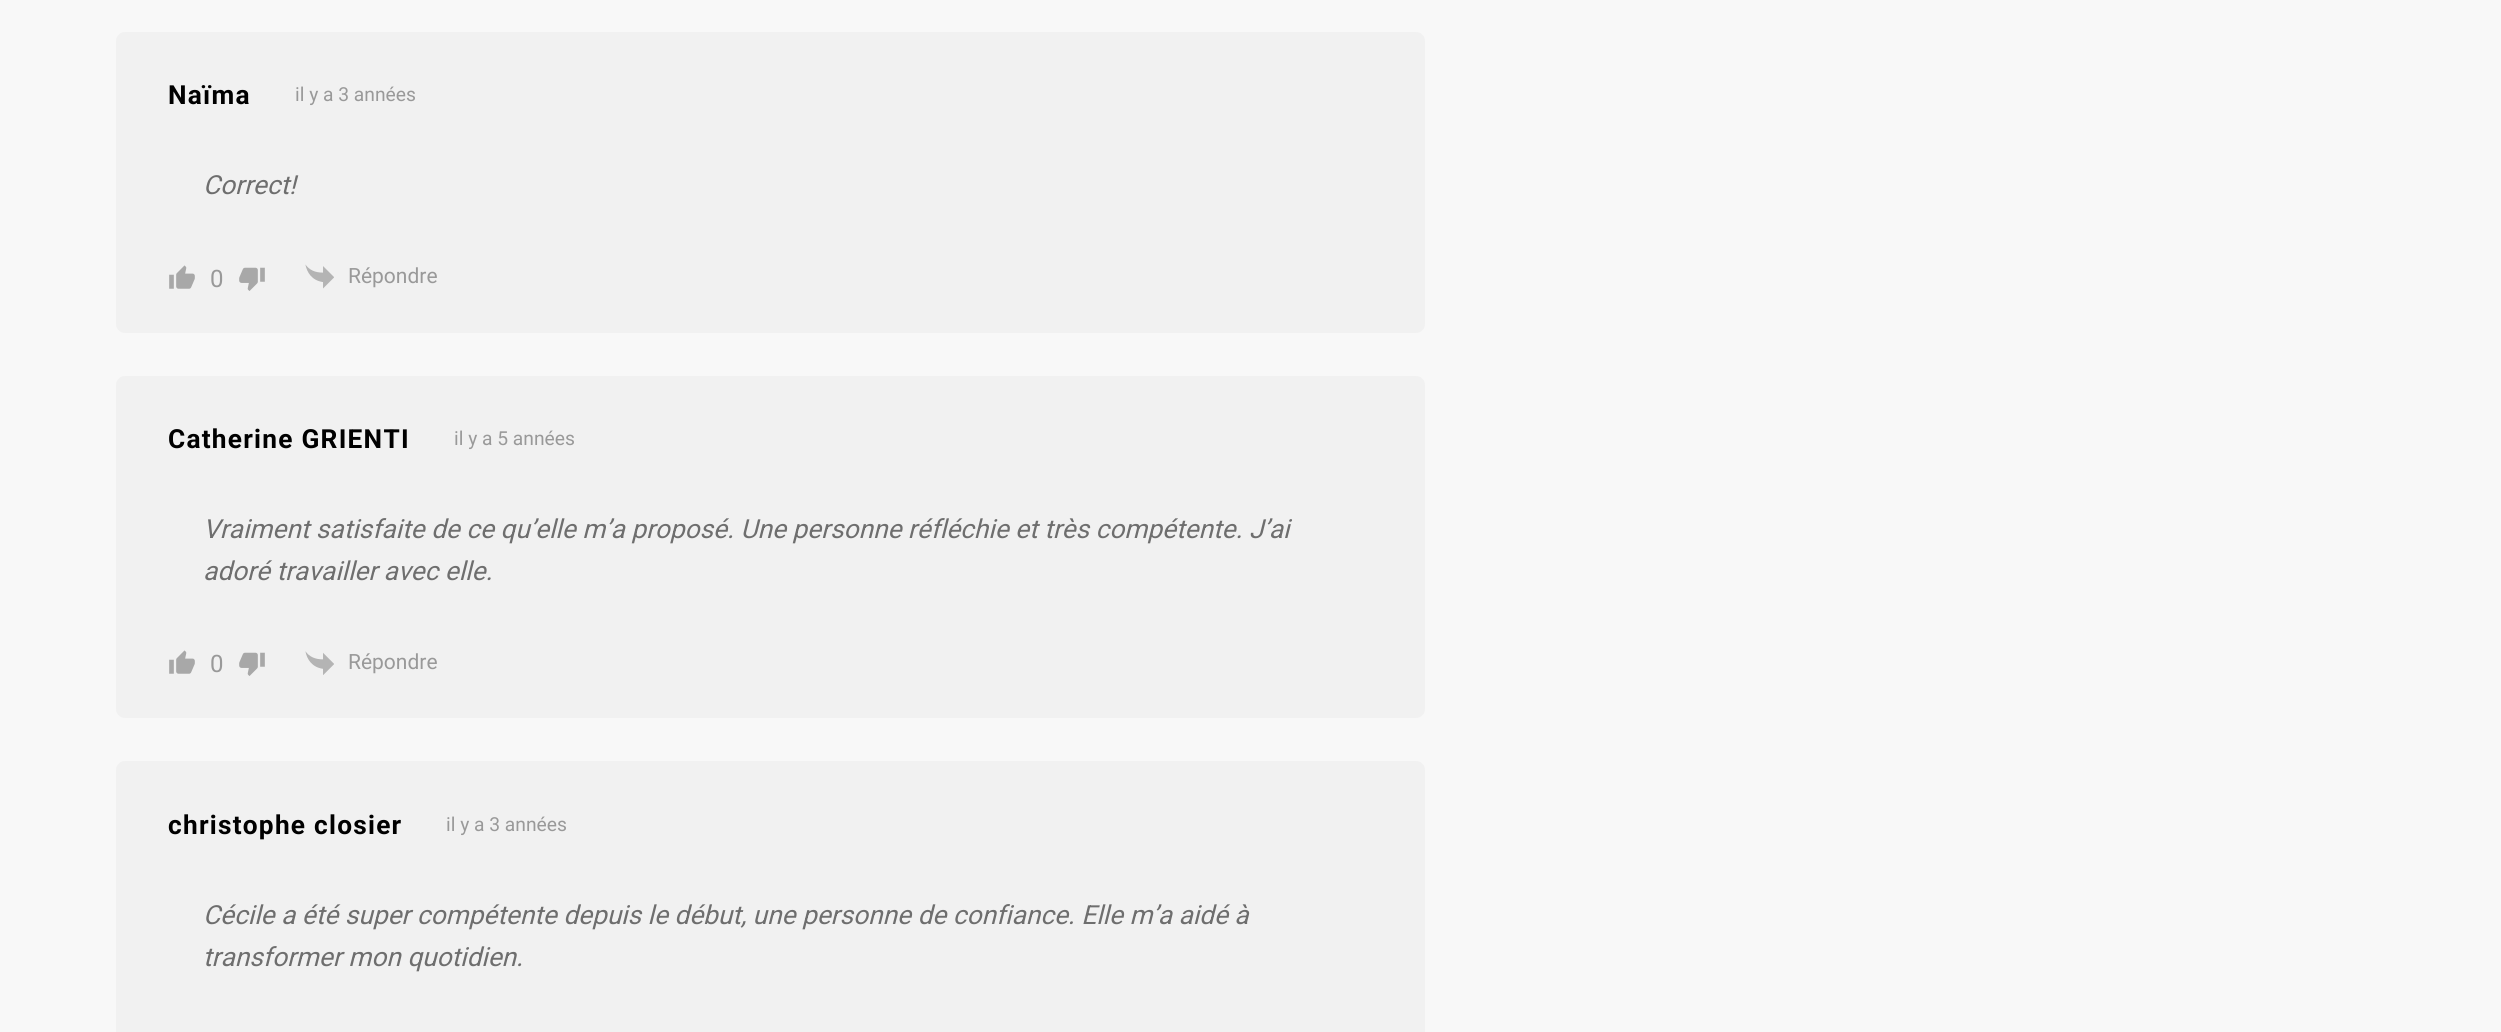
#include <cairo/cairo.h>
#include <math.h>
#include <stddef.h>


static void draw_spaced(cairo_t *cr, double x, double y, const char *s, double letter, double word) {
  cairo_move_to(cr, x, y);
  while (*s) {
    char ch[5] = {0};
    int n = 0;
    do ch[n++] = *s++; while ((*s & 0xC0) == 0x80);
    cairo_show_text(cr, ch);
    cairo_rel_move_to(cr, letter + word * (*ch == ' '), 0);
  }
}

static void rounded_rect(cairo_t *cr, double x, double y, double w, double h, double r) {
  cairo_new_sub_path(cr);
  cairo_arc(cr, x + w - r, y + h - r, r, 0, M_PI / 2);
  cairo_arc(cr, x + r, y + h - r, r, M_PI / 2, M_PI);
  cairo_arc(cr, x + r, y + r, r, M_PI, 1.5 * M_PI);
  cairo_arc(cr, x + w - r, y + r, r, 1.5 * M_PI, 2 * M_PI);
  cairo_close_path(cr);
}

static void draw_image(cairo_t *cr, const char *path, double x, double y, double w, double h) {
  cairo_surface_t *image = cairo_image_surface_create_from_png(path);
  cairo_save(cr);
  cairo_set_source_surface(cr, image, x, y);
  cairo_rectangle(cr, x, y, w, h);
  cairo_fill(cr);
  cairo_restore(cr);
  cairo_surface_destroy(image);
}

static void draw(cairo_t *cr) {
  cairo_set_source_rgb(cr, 248 / 255.0, 248 / 255.0, 248 / 255.0);
  cairo_paint(cr);
  cairo_set_source_rgb(cr, 241 / 255.0, 241 / 255.0, 241 / 255.0);
  rounded_rect(cr, 116, 32, 1309, 301, 9);
  cairo_fill(cr);
  draw_image(cr, "images/1.png", 169, 265, 26, 24);
  draw_image(cr, "images/2.png", 239, 267, 26, 24);
  draw_image(cr, "images/3.png", 305, 264, 29, 25);
  rounded_rect(cr, 116, 376, 1309, 342, 9);
  cairo_fill(cr);
  draw_image(cr, "images/1.png", 169, 650, 26, 24);
  draw_image(cr, "images/2.png", 239, 652, 26, 24);
  draw_image(cr, "images/4.png", 305, 651, 29, 24);
  rounded_rect(cr, 116, 761, 1309, 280, 9);
  cairo_fill(cr);
  cairo_select_font_face(cr, "Roboto", CAIRO_FONT_SLANT_NORMAL, CAIRO_FONT_WEIGHT_BOLD);
  cairo_set_font_size(cr, 26.25);
  cairo_set_source_rgb(cr, 0, 0, 0);
  draw_spaced(cr, 168, 104, "Naïma", 1.25, 0);
  cairo_select_font_face(cr, "Roboto", CAIRO_FONT_SLANT_NORMAL, CAIRO_FONT_WEIGHT_NORMAL);
  cairo_set_font_size(cr, 19.25);
  cairo_set_source_rgb(cr, 153 / 255.0, 153 / 255.0, 153 / 255.0);
  cairo_move_to(cr, 295, 101);
  cairo_show_text(cr, "il y a 3 années");
  cairo_select_font_face(cr, "Roboto", CAIRO_FONT_SLANT_ITALIC, CAIRO_FONT_WEIGHT_NORMAL);
  cairo_set_font_size(cr, 26.25);
  cairo_set_source_rgb(cr, 110 / 255.0, 110 / 255.0, 110 / 255.0);
  cairo_move_to(cr, 203, 194);
  cairo_show_text(cr, "Correct!");
  cairo_select_font_face(cr, "Roboto", CAIRO_FONT_SLANT_NORMAL, CAIRO_FONT_WEIGHT_NORMAL);
  cairo_set_font_size(cr, 24);
  cairo_set_source_rgb(cr, 153 / 255.0, 153 / 255.0, 153 / 255.0);
  cairo_move_to(cr, 210, 287);
  cairo_show_text(cr, "0");
  cairo_set_font_size(cr, 21);
  cairo_move_to(cr, 348, 283);
  cairo_show_text(cr, "Répondre");
  cairo_select_font_face(cr, "Roboto", CAIRO_FONT_SLANT_NORMAL, CAIRO_FONT_WEIGHT_BOLD);
  cairo_set_font_size(cr, 26.25);
  cairo_set_source_rgb(cr, 0, 0, 0);
  draw_spaced(cr, 168, 448, "Catherine GRIENTI", 1.25, 0);
  cairo_select_font_face(cr, "Roboto", CAIRO_FONT_SLANT_NORMAL, CAIRO_FONT_WEIGHT_NORMAL);
  cairo_set_font_size(cr, 19.25);
  cairo_set_source_rgb(cr, 153 / 255.0, 153 / 255.0, 153 / 255.0);
  cairo_move_to(cr, 454, 445);
  cairo_show_text(cr, "il y a 5 années");
  cairo_select_font_face(cr, "Roboto", CAIRO_FONT_SLANT_ITALIC, CAIRO_FONT_WEIGHT_NORMAL);
  cairo_set_font_size(cr, 26.25);
  cairo_set_source_rgb(cr, 110 / 255.0, 110 / 255.0, 110 / 255.0);
  cairo_move_to(cr, 203, 538);
  cairo_show_text(cr, "Vraiment satisfaite de ce qu’elle m’a proposé. Une personne réfléchie et très compétente. J’ai");
  cairo_move_to(cr, 203, 580);
  cairo_show_text(cr, "adoré travailler avec elle.");
  cairo_select_font_face(cr, "Roboto", CAIRO_FONT_SLANT_NORMAL, CAIRO_FONT_WEIGHT_NORMAL);
  cairo_set_font_size(cr, 24);
  cairo_set_source_rgb(cr, 153 / 255.0, 153 / 255.0, 153 / 255.0);
  cairo_move_to(cr, 210, 672);
  cairo_show_text(cr, "0");
  cairo_set_font_size(cr, 21);
  cairo_move_to(cr, 348, 669);
  cairo_show_text(cr, "Répondre");
  cairo_select_font_face(cr, "Roboto", CAIRO_FONT_SLANT_NORMAL, CAIRO_FONT_WEIGHT_BOLD);
  cairo_set_font_size(cr, 26.25);
  cairo_set_source_rgb(cr, 0, 0, 0);
  draw_spaced(cr, 168, 834, "christophe closier", 1.25, 0);
  cairo_select_font_face(cr, "Roboto", CAIRO_FONT_SLANT_NORMAL, CAIRO_FONT_WEIGHT_NORMAL);
  cairo_set_font_size(cr, 19.25);
  cairo_set_source_rgb(cr, 153 / 255.0, 153 / 255.0, 153 / 255.0);
  cairo_move_to(cr, 446, 831);
  cairo_show_text(cr, "il y a 3 années");
  cairo_select_font_face(cr, "Roboto", CAIRO_FONT_SLANT_ITALIC, CAIRO_FONT_WEIGHT_NORMAL);
  cairo_set_font_size(cr, 26.25);
  cairo_set_source_rgb(cr, 110 / 255.0, 110 / 255.0, 110 / 255.0);
  cairo_move_to(cr, 203, 924);
  cairo_show_text(cr, "Cécile a été super compétente depuis le début, une personne de confiance. Elle m’a aidé à");
  cairo_move_to(cr, 203, 966);
  cairo_show_text(cr, "transformer mon quotidien.");
}

int main(void) {
  cairo_surface_t *surface = cairo_image_surface_create(CAIRO_FORMAT_RGB24, 2501, 1032);
  cairo_t *cr = cairo_create(surface);
  cairo_font_options_t *options = cairo_font_options_create();
  cairo_font_options_set_hint_metrics(options, CAIRO_HINT_METRICS_OFF);
  cairo_font_options_set_hint_style(options, CAIRO_HINT_STYLE_NONE);
  cairo_set_font_options(cr, options);
  cairo_set_miter_limit(cr, 4);
  draw(cr);
  cairo_surface_write_to_png(surface, "out.png");
  cairo_font_options_destroy(options);
  cairo_destroy(cr);
  cairo_surface_destroy(surface);
  return 0;
}
